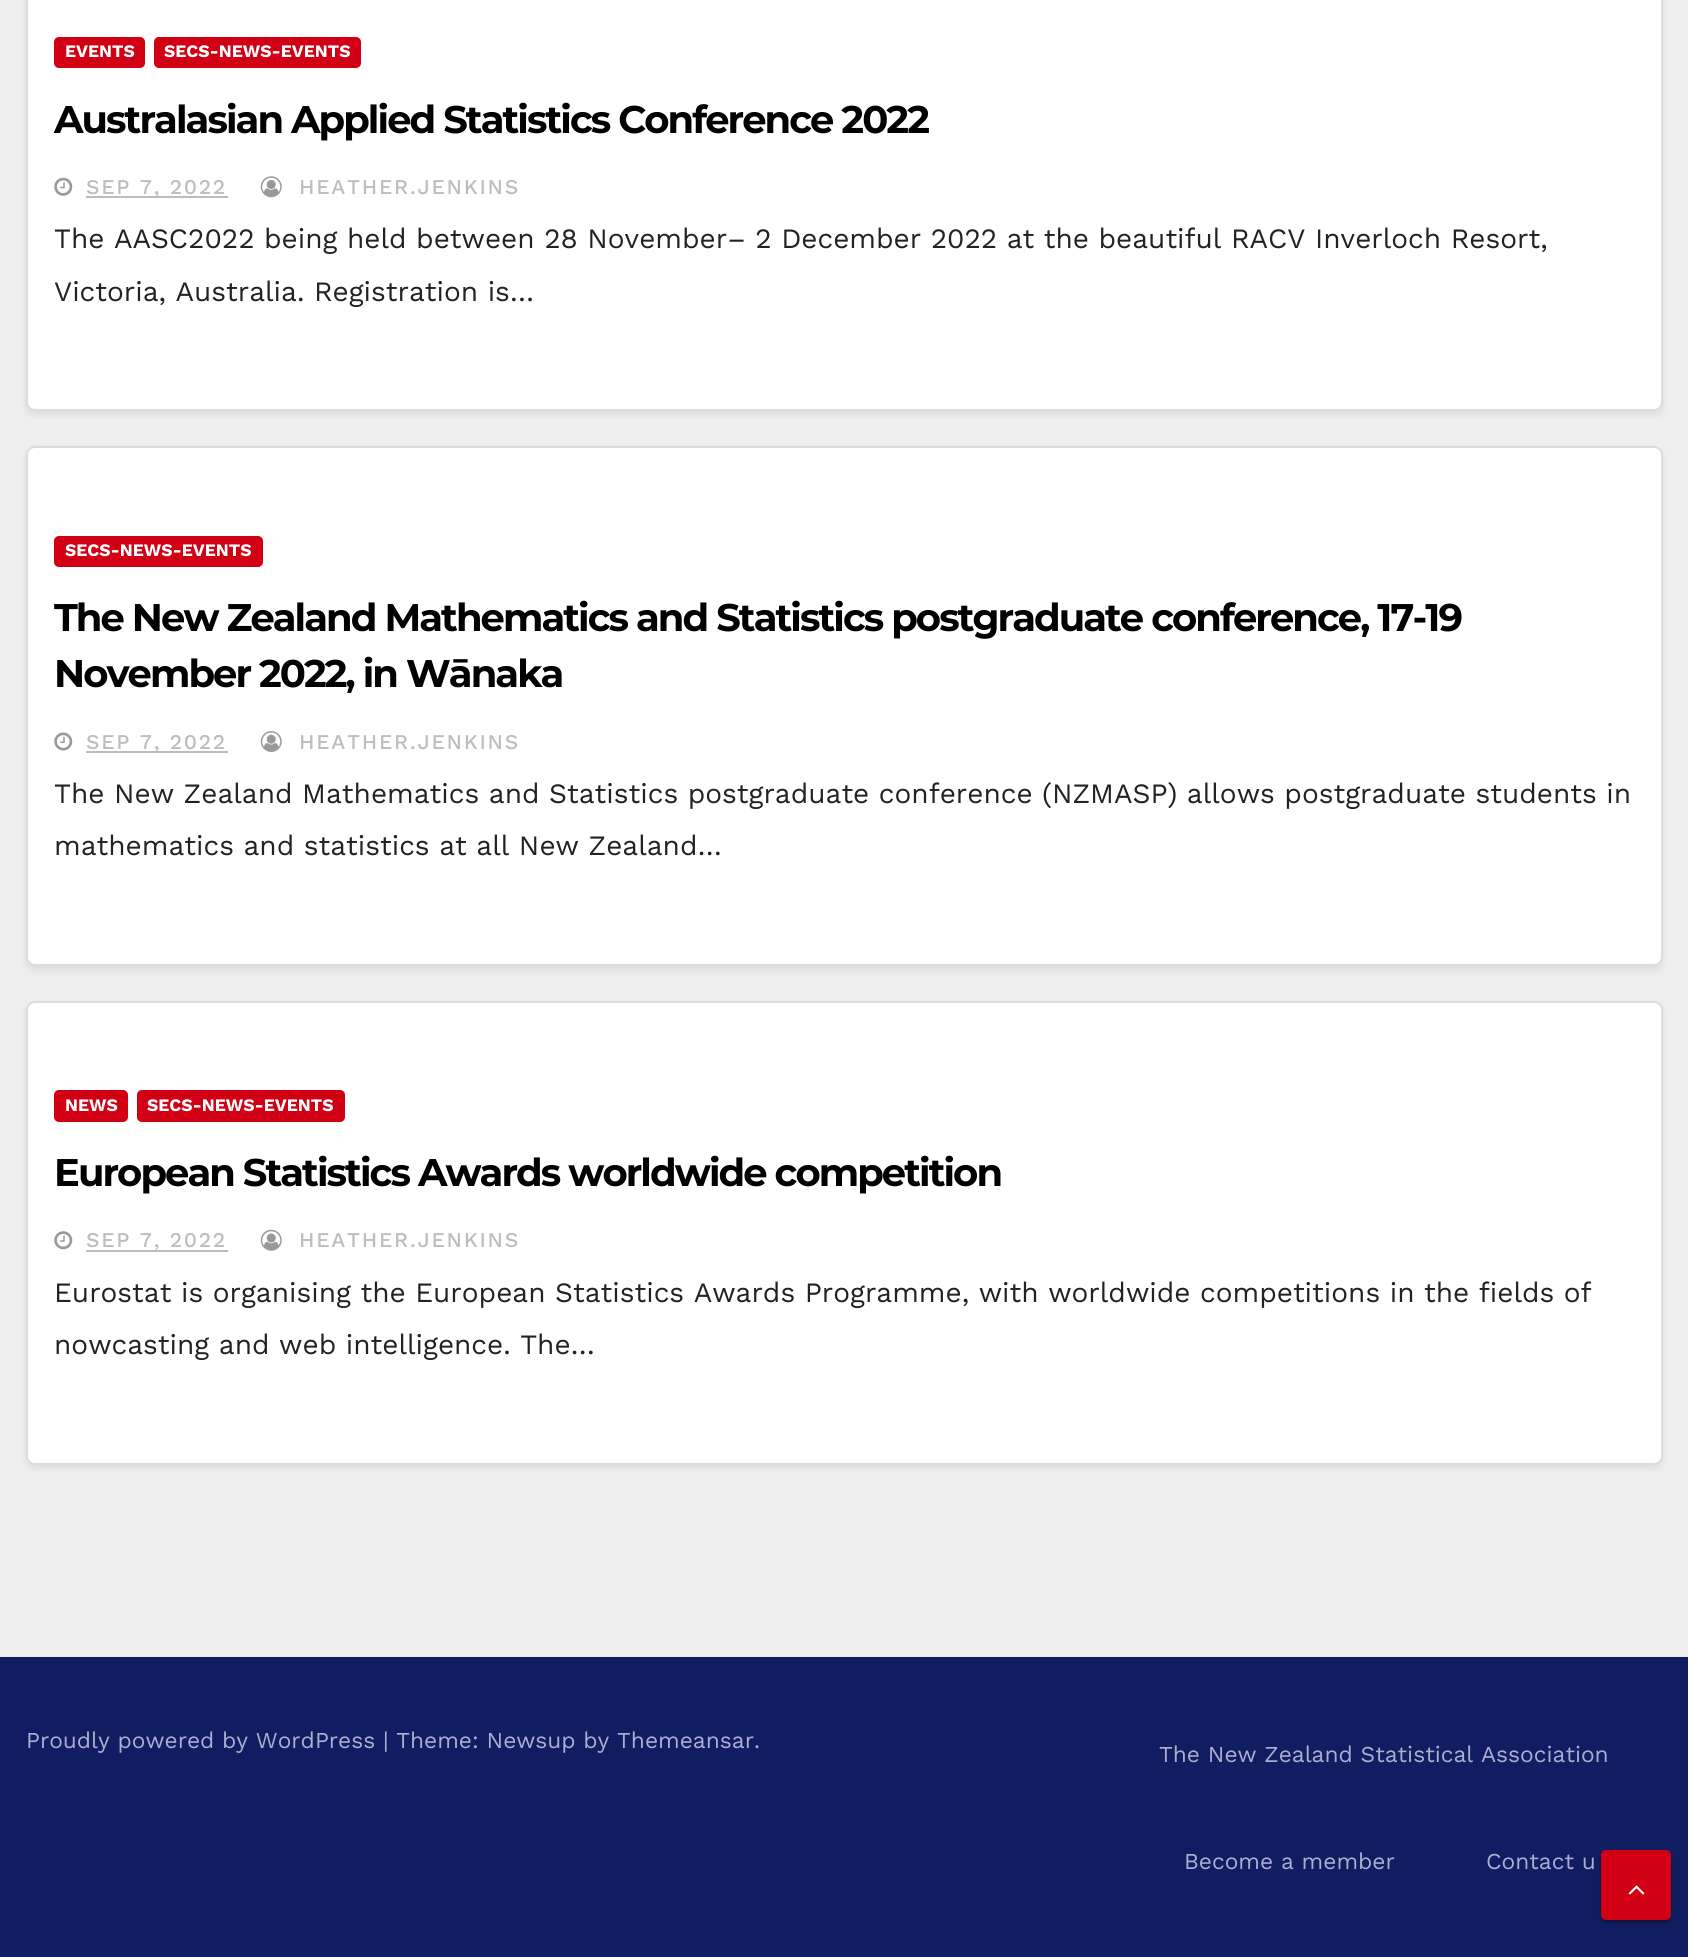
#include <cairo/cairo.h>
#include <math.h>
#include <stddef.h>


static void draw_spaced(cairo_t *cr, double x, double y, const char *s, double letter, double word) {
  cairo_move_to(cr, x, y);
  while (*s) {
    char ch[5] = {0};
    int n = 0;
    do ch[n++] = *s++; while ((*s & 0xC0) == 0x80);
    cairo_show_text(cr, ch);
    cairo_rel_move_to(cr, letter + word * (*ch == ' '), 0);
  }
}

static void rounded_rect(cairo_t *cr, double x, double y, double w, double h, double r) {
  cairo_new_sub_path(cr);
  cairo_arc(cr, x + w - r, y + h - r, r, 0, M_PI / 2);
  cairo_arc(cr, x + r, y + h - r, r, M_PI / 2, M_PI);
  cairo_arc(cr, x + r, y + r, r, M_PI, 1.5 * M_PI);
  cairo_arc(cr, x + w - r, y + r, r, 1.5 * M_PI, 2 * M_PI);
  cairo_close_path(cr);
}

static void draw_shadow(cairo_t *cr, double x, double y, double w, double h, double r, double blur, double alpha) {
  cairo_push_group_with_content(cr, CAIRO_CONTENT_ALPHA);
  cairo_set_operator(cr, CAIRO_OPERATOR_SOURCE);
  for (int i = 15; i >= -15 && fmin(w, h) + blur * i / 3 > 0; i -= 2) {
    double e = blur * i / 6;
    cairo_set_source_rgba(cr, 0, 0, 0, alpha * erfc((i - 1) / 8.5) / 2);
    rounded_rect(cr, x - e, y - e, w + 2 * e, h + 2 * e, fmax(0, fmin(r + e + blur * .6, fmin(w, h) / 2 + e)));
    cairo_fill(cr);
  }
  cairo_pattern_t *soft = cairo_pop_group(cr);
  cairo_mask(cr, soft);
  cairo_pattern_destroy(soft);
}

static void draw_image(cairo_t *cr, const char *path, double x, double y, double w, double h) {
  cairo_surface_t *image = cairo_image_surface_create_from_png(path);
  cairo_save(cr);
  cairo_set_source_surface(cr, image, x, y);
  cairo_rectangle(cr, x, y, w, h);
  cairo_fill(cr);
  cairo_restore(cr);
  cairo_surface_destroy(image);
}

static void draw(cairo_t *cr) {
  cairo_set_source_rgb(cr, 238 / 255.0, 238 / 255.0, 238 / 255.0);
  cairo_paint(cr);
  cairo_set_source_rgb(cr, 0, 0, 0);
  draw_shadow(cr, 26, -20, 1637, 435, 9, 3.5, 0.08);
  cairo_set_source_rgb(cr, 1, 1, 1);
  rounded_rect(cr, 27, -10, 1635, 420, 8);
  cairo_fill_preserve(cr);
  cairo_set_source_rgb(cr, 221 / 255.0, 220 / 255.0, 220 / 255.0);
  cairo_stroke(cr);
  cairo_set_source_rgb(cr, 209 / 255.0, 0, 20 / 255.0);
  rounded_rect(cr, 54, 37, 91, 31, 5);
  cairo_fill(cr);
  rounded_rect(cr, 154, 37, 207, 31, 5);
  cairo_fill(cr);
  draw_image(cr, "images/1.png", 54, 177, 19, 19);
  cairo_set_source_rgb(cr, 189 / 255.0, 189 / 255.0, 189 / 255.0);
  cairo_rectangle(cr, 86, 196, 142, 2);
  cairo_fill(cr);
  draw_image(cr, "images/2.png", 260, 176, 22, 22);
  cairo_set_source_rgb(cr, 0, 0, 0);
  draw_shadow(cr, 26, 450, 1637, 520, 9, 3.5, 0.08);
  cairo_set_source_rgb(cr, 1, 1, 1);
  rounded_rect(cr, 27, 447, 1635, 518, 8);
  cairo_fill_preserve(cr);
  cairo_set_source_rgb(cr, 221 / 255.0, 220 / 255.0, 220 / 255.0);
  cairo_stroke(cr);
  cairo_set_source_rgb(cr, 209 / 255.0, 0, 20 / 255.0);
  rounded_rect(cr, 54, 536, 209, 31, 5);
  cairo_fill(cr);
  draw_image(cr, "images/3.png", 54, 732, 19, 19);
  cairo_set_source_rgb(cr, 189 / 255.0, 189 / 255.0, 189 / 255.0);
  cairo_rectangle(cr, 86, 751, 142, 2);
  cairo_fill(cr);
  draw_image(cr, "images/4.png", 260, 731, 22, 21);
  cairo_set_source_rgb(cr, 0, 0, 0);
  draw_shadow(cr, 26, 1005, 1637, 463, 9, 3.5, 0.08);
  cairo_set_source_rgb(cr, 1, 1, 1);
  rounded_rect(cr, 27, 1002, 1635, 462, 8);
  cairo_fill_preserve(cr);
  cairo_set_source_rgb(cr, 221 / 255.0, 220 / 255.0, 220 / 255.0);
  cairo_stroke(cr);
  cairo_set_source_rgb(cr, 209 / 255.0, 0, 20 / 255.0);
  rounded_rect(cr, 54, 1090, 74, 32, 5);
  cairo_fill(cr);
  rounded_rect(cr, 137, 1090, 208, 32, 5);
  cairo_fill(cr);
  draw_image(cr, "images/5.png", 54, 1231, 19, 19);
  cairo_set_source_rgb(cr, 189 / 255.0, 189 / 255.0, 189 / 255.0);
  cairo_rectangle(cr, 86, 1250, 142, 2);
  cairo_fill(cr);
  draw_image(cr, "images/6.png", 260, 1229, 22, 22);
  cairo_set_source_rgb(cr, 16 / 255.0, 30 / 255.0, 97 / 255.0);
  cairo_rectangle(cr, 0, 1657, 1688, 300);
  cairo_fill(cr);
  cairo_set_source_rgb(cr, 0, 0, 0);
  draw_shadow(cr, 1601, 1852, 70, 70, 5, 4.5, 0.12);
  draw_shadow(cr, 1605, 1859, 63, 63, 2, 1, 0.2);
  draw_shadow(cr, 1601, 1853, 70, 70, 5, 2, 0.14);
  cairo_set_source_rgb(cr, 209 / 255.0, 0, 20 / 255.0);
  rounded_rect(cr, 1603, 1852, 66, 66, 3);
  cairo_fill_preserve(cr);
  cairo_set_line_width(cr, 4);
  cairo_stroke(cr);
  draw_image(cr, "images/7.png", 1628, 1885, 17, 10);
  cairo_select_font_face(cr, "Work Sans", CAIRO_FONT_SLANT_NORMAL, CAIRO_FONT_WEIGHT_BOLD);
  cairo_set_font_size(cr, 17.5);
  cairo_set_source_rgb(cr, 1, 1, 1);
  cairo_move_to(cr, 65, 57);
  cairo_show_text(cr, "EVENTS");
  cairo_move_to(cr, 164, 57);
  cairo_show_text(cr, "SECS-NEWS-EVENTS");
  cairo_select_font_face(cr, "Montserrat", CAIRO_FONT_SLANT_NORMAL, CAIRO_FONT_WEIGHT_BOLD);
  cairo_set_font_size(cr, 38.5);
  cairo_set_source_rgb(cr, 0, 0, 0);
  draw_spaced(cr, 54, 133, "Australasian Applied Statistics Conference 2022", -1.93, 0);
  cairo_select_font_face(cr, "Work Sans Medium", CAIRO_FONT_SLANT_NORMAL, CAIRO_FONT_WEIGHT_NORMAL);
  cairo_set_font_size(cr, 21);
  cairo_set_source_rgb(cr, 189 / 255.0, 189 / 255.0, 189 / 255.0);
  draw_spaced(cr, 86, 194, "SEP 7, 2022", 1.75, 0);
  draw_spaced(cr, 299, 194, "HEATHER.JENKINS", 1.75, 0);
  cairo_select_font_face(cr, "Work Sans", CAIRO_FONT_SLANT_NORMAL, CAIRO_FONT_WEIGHT_NORMAL);
  cairo_set_font_size(cr, 28);
  cairo_set_source_rgb(cr, 34 / 255.0, 34 / 255.0, 34 / 255.0);
  cairo_move_to(cr, 54, 248);
  cairo_show_text(cr, "The AASC2022 being held between 28 November– 2 December 2022 at the beautiful RACV Inverloch Resort,");
  cairo_move_to(cr, 54, 301);
  cairo_show_text(cr, "Victoria, Australia. Registration is…");
  cairo_select_font_face(cr, "Work Sans", CAIRO_FONT_SLANT_NORMAL, CAIRO_FONT_WEIGHT_BOLD);
  cairo_set_font_size(cr, 17.5);
  cairo_set_source_rgb(cr, 1, 1, 1);
  cairo_move_to(cr, 65, 556);
  cairo_show_text(cr, "SECS-NEWS-EVENTS");
  cairo_select_font_face(cr, "Montserrat", CAIRO_FONT_SLANT_NORMAL, CAIRO_FONT_WEIGHT_BOLD);
  cairo_set_font_size(cr, 38.5);
  cairo_set_source_rgb(cr, 0, 0, 0);
  draw_spaced(cr, 54, 631, "The New Zealand Mathematics and Statistics postgraduate conference, 17-19", -1.93, 0);
  draw_spaced(cr, 54, 687, "November 2022, in Wānaka", -1.93, 0);
  cairo_select_font_face(cr, "Work Sans Medium", CAIRO_FONT_SLANT_NORMAL, CAIRO_FONT_WEIGHT_NORMAL);
  cairo_set_font_size(cr, 21);
  cairo_set_source_rgb(cr, 189 / 255.0, 189 / 255.0, 189 / 255.0);
  draw_spaced(cr, 86, 749, "SEP 7, 2022", 1.75, 0);
  draw_spaced(cr, 299, 749, "HEATHER.JENKINS", 1.75, 0);
  cairo_select_font_face(cr, "Work Sans", CAIRO_FONT_SLANT_NORMAL, CAIRO_FONT_WEIGHT_NORMAL);
  cairo_set_font_size(cr, 28);
  cairo_set_source_rgb(cr, 34 / 255.0, 34 / 255.0, 34 / 255.0);
  cairo_move_to(cr, 54, 803);
  cairo_show_text(cr, "The New Zealand Mathematics and Statistics postgraduate conference (NZMASP) allows postgraduate students in");
  cairo_move_to(cr, 54, 855);
  cairo_show_text(cr, "mathematics and statistics at all New Zealand…");
  cairo_select_font_face(cr, "Work Sans", CAIRO_FONT_SLANT_NORMAL, CAIRO_FONT_WEIGHT_BOLD);
  cairo_set_font_size(cr, 17.5);
  cairo_set_source_rgb(cr, 1, 1, 1);
  cairo_move_to(cr, 65, 1111);
  cairo_show_text(cr, "NEWS");
  cairo_move_to(cr, 147, 1111);
  cairo_show_text(cr, "SECS-NEWS-EVENTS");
  cairo_select_font_face(cr, "Montserrat", CAIRO_FONT_SLANT_NORMAL, CAIRO_FONT_WEIGHT_BOLD);
  cairo_set_font_size(cr, 38.5);
  cairo_set_source_rgb(cr, 0, 0, 0);
  draw_spaced(cr, 54, 1186, "European Statistics Awards worldwide competition", -1.93, 0);
  cairo_select_font_face(cr, "Work Sans Medium", CAIRO_FONT_SLANT_NORMAL, CAIRO_FONT_WEIGHT_NORMAL);
  cairo_set_font_size(cr, 21);
  cairo_set_source_rgb(cr, 189 / 255.0, 189 / 255.0, 189 / 255.0);
  draw_spaced(cr, 86, 1247, "SEP 7, 2022", 1.75, 0);
  draw_spaced(cr, 299, 1247, "HEATHER.JENKINS", 1.75, 0);
  cairo_select_font_face(cr, "Work Sans", CAIRO_FONT_SLANT_NORMAL, CAIRO_FONT_WEIGHT_NORMAL);
  cairo_set_font_size(cr, 28);
  cairo_set_source_rgb(cr, 34 / 255.0, 34 / 255.0, 34 / 255.0);
  cairo_move_to(cr, 54, 1302);
  cairo_show_text(cr, "Eurostat is organising the European Statistics Awards Programme, with worldwide competitions in the fields of");
  cairo_move_to(cr, 54, 1354);
  cairo_show_text(cr, "nowcasting and web intelligence. The…");
  cairo_set_font_size(cr, 22.75);
  cairo_set_source_rgb(cr, 170 / 255.0, 174 / 255.0, 209 / 255.0);
  cairo_move_to(cr, 26, 1748);
  cairo_show_text(cr, "Proudly powered by WordPress | Theme: Newsup by Themeansar.");
  cairo_move_to(cr, 1159, 1762);
  cairo_show_text(cr, "The New Zealand Statistical Association");
  cairo_move_to(cr, 1184, 1869);
  cairo_show_text(cr, "Become a member");
  cairo_move_to(cr, 1486, 1869);
  cairo_show_text(cr, "Contact u");
}

int main(void) {
  cairo_surface_t *surface = cairo_image_surface_create(CAIRO_FORMAT_RGB24, 1688, 1957);
  cairo_t *cr = cairo_create(surface);
  cairo_font_options_t *options = cairo_font_options_create();
  cairo_font_options_set_hint_metrics(options, CAIRO_HINT_METRICS_OFF);
  cairo_font_options_set_hint_style(options, CAIRO_HINT_STYLE_NONE);
  cairo_set_font_options(cr, options);
  cairo_set_miter_limit(cr, 4);
  draw(cr);
  cairo_surface_write_to_png(surface, "out.png");
  cairo_font_options_destroy(options);
  cairo_destroy(cr);
  cairo_surface_destroy(surface);
  return 0;
}
